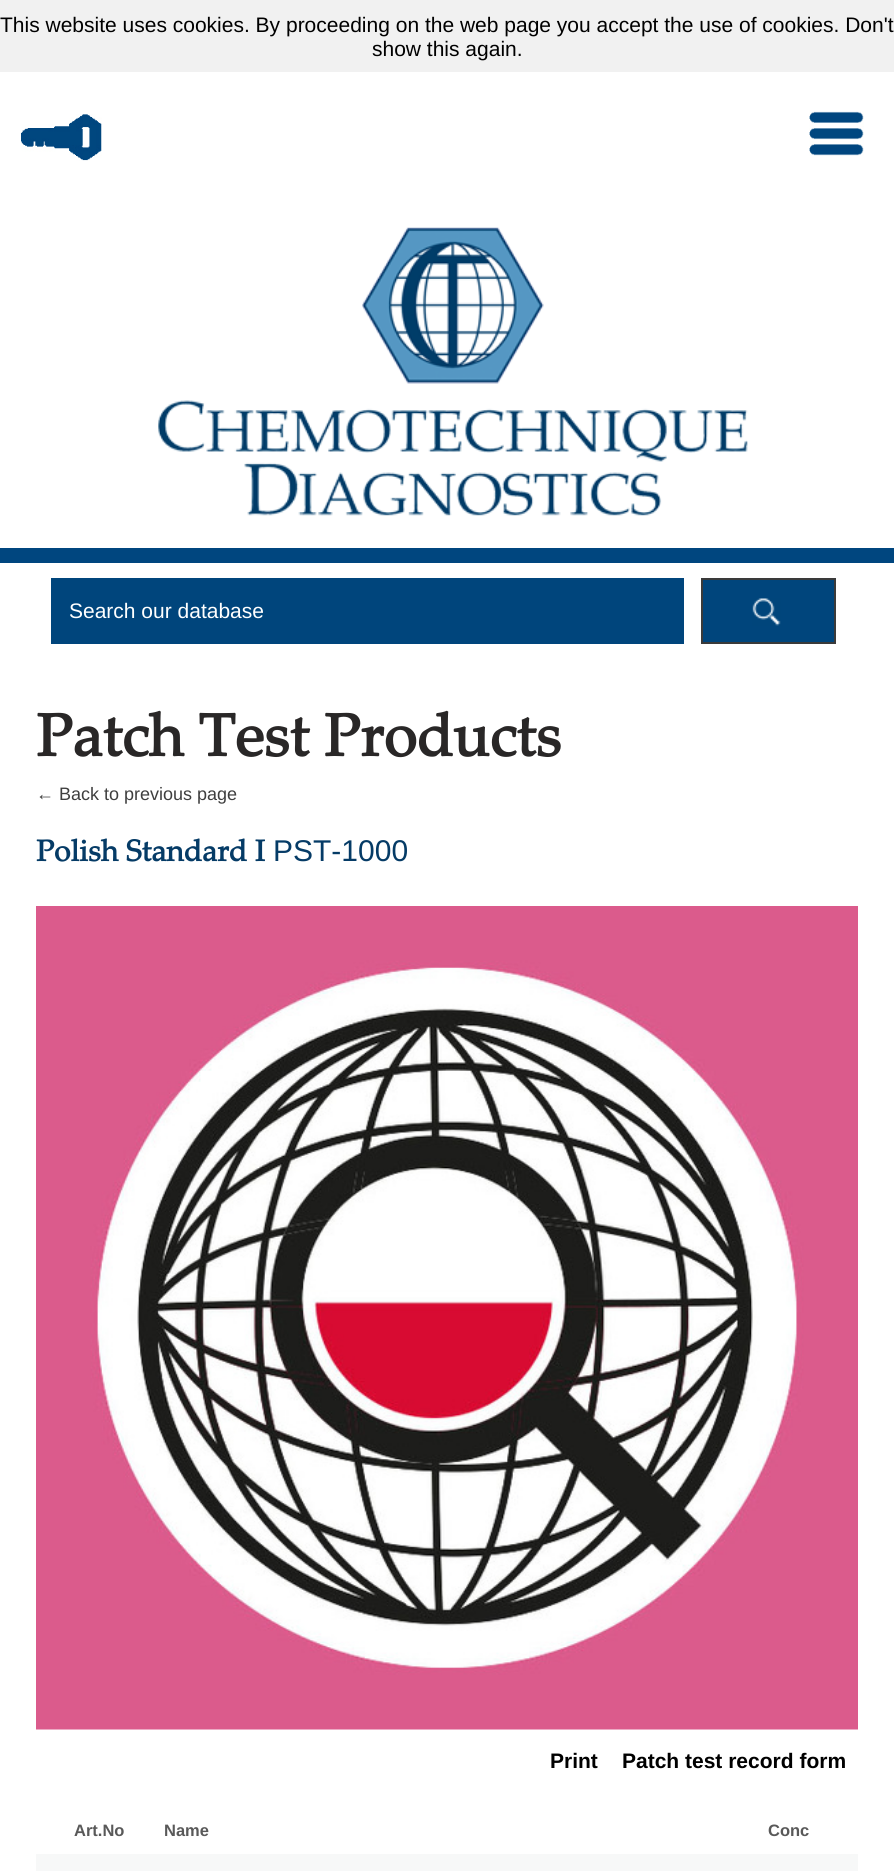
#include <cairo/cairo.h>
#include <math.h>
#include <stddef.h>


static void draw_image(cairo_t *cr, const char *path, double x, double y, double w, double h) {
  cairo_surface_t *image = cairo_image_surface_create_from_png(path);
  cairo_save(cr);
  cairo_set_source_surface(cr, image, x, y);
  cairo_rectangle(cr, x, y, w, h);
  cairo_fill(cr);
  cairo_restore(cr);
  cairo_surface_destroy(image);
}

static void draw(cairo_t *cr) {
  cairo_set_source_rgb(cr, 1, 1, 1);
  cairo_paint(cr);
  cairo_set_source_rgb(cr, 241 / 255.0, 241 / 255.0, 241 / 255.0);
  cairo_rectangle(cr, 0, 0, 894, 72);
  cairo_fill(cr);
  draw_image(cr, "images/1.png", 21, 114, 81, 47);
  draw_image(cr, "images/2.png", 809, 111, 55, 45);
  cairo_set_source_rgb(cr, 0, 70 / 255.0, 127 / 255.0);
  cairo_rectangle(cr, 0, 548, 894, 15);
  cairo_fill(cr);
  draw_image(cr, "images/3.png", 158, 227, 590, 289);
  cairo_set_source_rgb(cr, 0, 69 / 255.0, 124 / 255.0);
  cairo_rectangle(cr, 51, 578, 633, 66);
  cairo_fill(cr);
  cairo_rectangle(cr, 703, 580, 131, 62);
  cairo_fill(cr);
  draw_image(cr, "images/4.png", 752, 598, 29, 28);
  cairo_rectangle(cr, 702, 579, 133, 64);
  cairo_set_source_rgb(cr, 58 / 255.0, 58 / 255.0, 58 / 255.0);
  cairo_stroke(cr);
  draw_image(cr, "images/5.png", 36, 906, 822, 824);
  cairo_set_source_rgb(cr, 247 / 255.0, 248 / 255.0, 248 / 255.0);
  cairo_rectangle(cr, 36, 1854, 822, 17);
  cairo_fill(cr);
  cairo_select_font_face(cr, "Liberation Sans", CAIRO_FONT_SLANT_NORMAL, CAIRO_FONT_WEIGHT_NORMAL);
  cairo_set_font_size(cr, 21);
  cairo_set_source_rgb(cr, 0, 0, 0);
  cairo_move_to(cr, 0, 32);
  cairo_show_text(cr, "This website uses cookies. By proceeding on the web page you accept the use of cookies. Don't");
  cairo_move_to(cr, 372, 56);
  cairo_show_text(cr, "show this again.");
  cairo_set_source_rgb(cr, 1, 1, 1);
  cairo_move_to(cr, 69, 618);
  cairo_show_text(cr, "Search our database");
  cairo_select_font_face(cr, "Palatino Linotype", CAIRO_FONT_SLANT_NORMAL, CAIRO_FONT_WEIGHT_BOLD);
  cairo_set_font_size(cr, 60);
  cairo_set_source_rgb(cr, 41 / 255.0, 39 / 255.0, 39 / 255.0);
  cairo_move_to(cr, 36, 756);
  cairo_show_text(cr, "Patch Test Products");
  cairo_select_font_face(cr, "Liberation Sans", CAIRO_FONT_SLANT_NORMAL, CAIRO_FONT_WEIGHT_NORMAL);
  cairo_set_font_size(cr, 18);
  cairo_set_source_rgb(cr, 63 / 255.0, 63 / 255.0, 63 / 255.0);
  cairo_move_to(cr, 36, 800);
  cairo_show_text(cr, "← Back to previous page");
  cairo_select_font_face(cr, "Palatino Linotype", CAIRO_FONT_SLANT_NORMAL, CAIRO_FONT_WEIGHT_BOLD);
  cairo_set_font_size(cr, 30);
  cairo_set_source_rgb(cr, 5 / 255.0, 59 / 255.0, 102 / 255.0);
  cairo_move_to(cr, 36, 861);
  cairo_show_text(cr, "Polish Standard I");
  cairo_select_font_face(cr, "Liberation Sans", CAIRO_FONT_SLANT_NORMAL, CAIRO_FONT_WEIGHT_NORMAL);
  cairo_move_to(cr, 273, 861);
  cairo_show_text(cr, "PST-1000");
  cairo_select_font_face(cr, "Liberation Sans", CAIRO_FONT_SLANT_NORMAL, CAIRO_FONT_WEIGHT_BOLD);
  cairo_set_font_size(cr, 21);
  cairo_set_source_rgb(cr, 0, 0, 0);
  cairo_move_to(cr, 550, 1768);
  cairo_show_text(cr, "Print");
  cairo_move_to(cr, 622, 1768);
  cairo_show_text(cr, "Patch test record form");
  cairo_set_font_size(cr, 16.5);
  cairo_set_source_rgb(cr, 89 / 255.0, 89 / 255.0, 89 / 255.0);
  cairo_move_to(cr, 74, 1836);
  cairo_show_text(cr, "Art.No");
  cairo_move_to(cr, 164, 1836);
  cairo_show_text(cr, "Name");
  cairo_move_to(cr, 768, 1836);
  cairo_show_text(cr, "Conc");
}

int main(void) {
  cairo_surface_t *surface = cairo_image_surface_create(CAIRO_FORMAT_RGB24, 894, 1871);
  cairo_t *cr = cairo_create(surface);
  cairo_font_options_t *options = cairo_font_options_create();
  cairo_font_options_set_hint_metrics(options, CAIRO_HINT_METRICS_OFF);
  cairo_font_options_set_hint_style(options, CAIRO_HINT_STYLE_NONE);
  cairo_set_font_options(cr, options);
  cairo_set_miter_limit(cr, 4);
  draw(cr);
  cairo_surface_write_to_png(surface, "out.png");
  cairo_font_options_destroy(options);
  cairo_destroy(cr);
  cairo_surface_destroy(surface);
  return 0;
}
